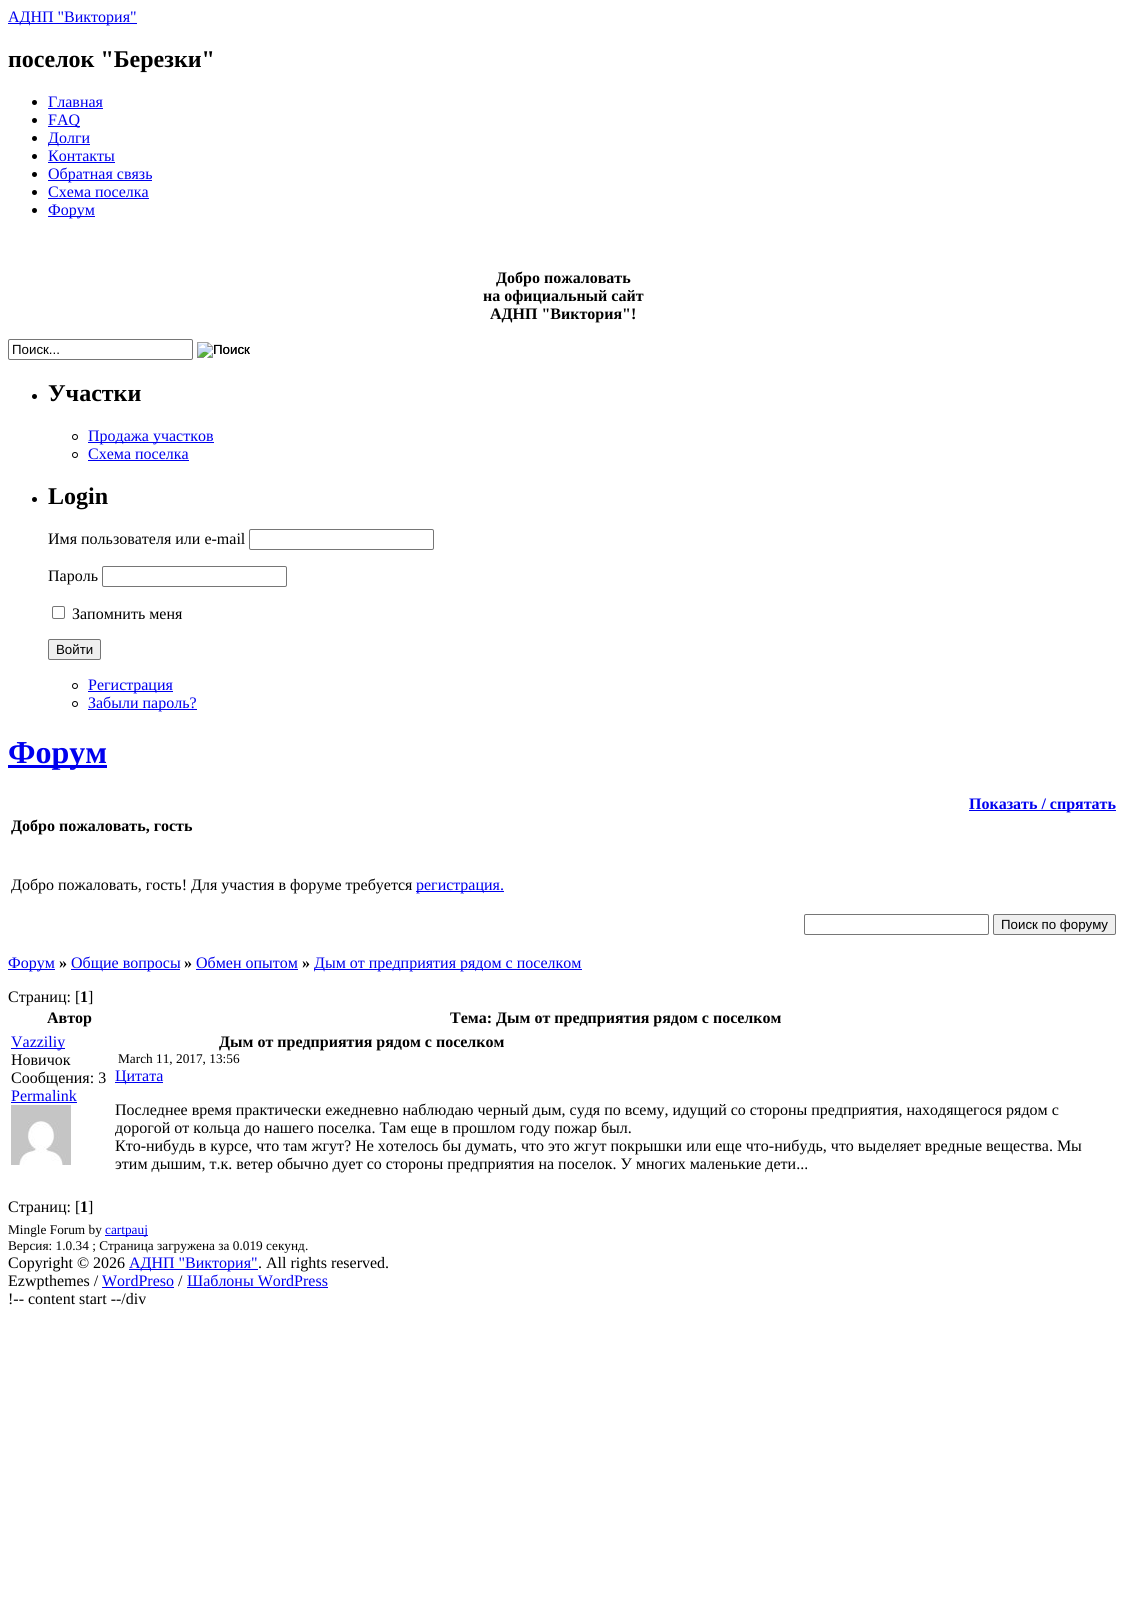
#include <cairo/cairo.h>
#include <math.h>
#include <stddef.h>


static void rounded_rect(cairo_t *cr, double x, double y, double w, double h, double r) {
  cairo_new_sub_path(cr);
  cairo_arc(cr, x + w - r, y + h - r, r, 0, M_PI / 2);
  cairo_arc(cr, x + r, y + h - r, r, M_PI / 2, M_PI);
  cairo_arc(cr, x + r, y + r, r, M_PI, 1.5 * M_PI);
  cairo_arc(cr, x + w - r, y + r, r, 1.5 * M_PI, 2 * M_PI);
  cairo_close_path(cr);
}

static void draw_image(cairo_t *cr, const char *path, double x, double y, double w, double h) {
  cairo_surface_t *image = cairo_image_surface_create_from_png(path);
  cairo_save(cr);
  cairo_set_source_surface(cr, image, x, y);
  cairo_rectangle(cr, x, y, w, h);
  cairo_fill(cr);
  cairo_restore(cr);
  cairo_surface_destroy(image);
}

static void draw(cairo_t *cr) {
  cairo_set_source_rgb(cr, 1, 1, 1);
  cairo_paint(cr);
  cairo_set_source_rgb(cr, 0, 0, 238 / 255.0);
  cairo_rectangle(cr, 8, 23, 129, 1);
  cairo_fill(cr);
  cairo_set_source_rgb(cr, 0, 0, 0);
  cairo_arc(cr, 34.5, 102.5, 2.5, 0, 2 * M_PI);
  cairo_fill(cr);
  cairo_set_source_rgb(cr, 0, 0, 238 / 255.0);
  cairo_rectangle(cr, 48, 108, 55, 1);
  cairo_fill(cr);
  cairo_set_source_rgb(cr, 0, 0, 0);
  cairo_arc(cr, 34.5, 120.5, 2.5, 0, 2 * M_PI);
  cairo_fill(cr);
  cairo_set_source_rgb(cr, 0, 0, 238 / 255.0);
  cairo_rectangle(cr, 48, 126, 32, 1);
  cairo_fill(cr);
  cairo_set_source_rgb(cr, 0, 0, 0);
  cairo_arc(cr, 34.5, 138.5, 2.5, 0, 2 * M_PI);
  cairo_fill(cr);
  cairo_set_source_rgb(cr, 0, 0, 238 / 255.0);
  cairo_rectangle(cr, 48, 144, 42, 1);
  cairo_fill(cr);
  cairo_set_source_rgb(cr, 0, 0, 0);
  cairo_arc(cr, 34.5, 156.5, 2.5, 0, 2 * M_PI);
  cairo_fill(cr);
  cairo_set_source_rgb(cr, 0, 0, 238 / 255.0);
  cairo_rectangle(cr, 48, 162, 67, 1);
  cairo_fill(cr);
  cairo_set_source_rgb(cr, 0, 0, 0);
  cairo_arc(cr, 34.5, 174.5, 2.5, 0, 2 * M_PI);
  cairo_fill(cr);
  cairo_set_source_rgb(cr, 0, 0, 238 / 255.0);
  cairo_rectangle(cr, 48, 180, 104, 1);
  cairo_fill(cr);
  cairo_set_source_rgb(cr, 0, 0, 0);
  cairo_arc(cr, 34.5, 192.5, 2.5, 0, 2 * M_PI);
  cairo_fill(cr);
  cairo_set_source_rgb(cr, 0, 0, 238 / 255.0);
  cairo_rectangle(cr, 48, 198, 101, 1);
  cairo_fill(cr);
  cairo_set_source_rgb(cr, 0, 0, 0);
  cairo_arc(cr, 34.5, 210.5, 2.5, 0, 2 * M_PI);
  cairo_fill(cr);
  cairo_set_source_rgb(cr, 0, 0, 238 / 255.0);
  cairo_rectangle(cr, 48, 216, 47, 1);
  cairo_fill(cr);
  rounded_rect(cr, 8.5, 339.5, 184, 20, 1.5);
  cairo_set_source_rgb(cr, 118 / 255.0, 118 / 255.0, 118 / 255.0);
  cairo_set_line_width(cr, 1);
  cairo_stroke(cr);
  draw_image(cr, "images/1.png", 197, 342, 53, 16);
  cairo_set_source_rgb(cr, 0, 0, 0);
  cairo_arc(cr, 34.5, 396.5, 2.5, 0, 2 * M_PI);
  cairo_fill(cr);
  cairo_arc(cr, 75, 437, 2.5, 0, 2 * M_PI);
  cairo_stroke(cr);
  cairo_set_source_rgb(cr, 0, 0, 238 / 255.0);
  cairo_rectangle(cr, 88, 442, 126, 1);
  cairo_fill(cr);
  cairo_arc(cr, 75, 455, 2.5, 0, 2 * M_PI);
  cairo_set_source_rgb(cr, 0, 0, 0);
  cairo_stroke(cr);
  cairo_set_source_rgb(cr, 0, 0, 238 / 255.0);
  cairo_rectangle(cr, 88, 460, 101, 1);
  cairo_fill(cr);
  cairo_set_source_rgb(cr, 0, 0, 0);
  cairo_arc(cr, 34.5, 499.5, 2.5, 0, 2 * M_PI);
  cairo_fill(cr);
  rounded_rect(cr, 249.5, 529.5, 184, 20, 1.5);
  cairo_set_source_rgb(cr, 118 / 255.0, 118 / 255.0, 118 / 255.0);
  cairo_stroke(cr);
  rounded_rect(cr, 102.5, 566.5, 184, 20, 1.5);
  cairo_stroke(cr);
  rounded_rect(cr, 52.5, 606.5, 12, 12, 1.5);
  cairo_stroke(cr);
  cairo_set_source_rgb(cr, 239 / 255.0, 239 / 255.0, 239 / 255.0);
  rounded_rect(cr, 48.5, 639.5, 52, 20, 1.5);
  cairo_fill_preserve(cr);
  cairo_set_source_rgb(cr, 118 / 255.0, 118 / 255.0, 118 / 255.0);
  cairo_stroke(cr);
  cairo_arc(cr, 75, 686, 2.5, 0, 2 * M_PI);
  cairo_set_source_rgb(cr, 0, 0, 0);
  cairo_stroke(cr);
  cairo_set_source_rgb(cr, 0, 0, 238 / 255.0);
  cairo_rectangle(cr, 88, 691, 85, 1);
  cairo_fill(cr);
  cairo_arc(cr, 75, 704, 2.5, 0, 2 * M_PI);
  cairo_set_source_rgb(cr, 0, 0, 0);
  cairo_stroke(cr);
  cairo_set_source_rgb(cr, 0, 0, 238 / 255.0);
  cairo_rectangle(cr, 88, 709, 109, 1);
  cairo_fill(cr);
  cairo_rectangle(cr, 8, 765, 99, 3);
  cairo_fill(cr);
  cairo_rectangle(cr, 969, 810, 147, 1);
  cairo_fill(cr);
  cairo_rectangle(cr, 416, 891, 88, 1);
  cairo_fill(cr);
  rounded_rect(cr, 804.5, 914.5, 184, 20, 1.5);
  cairo_set_source_rgb(cr, 118 / 255.0, 118 / 255.0, 118 / 255.0);
  cairo_stroke(cr);
  cairo_set_source_rgb(cr, 239 / 255.0, 239 / 255.0, 239 / 255.0);
  rounded_rect(cr, 993.5, 914.5, 122, 20, 1.5);
  cairo_fill_preserve(cr);
  cairo_set_source_rgb(cr, 118 / 255.0, 118 / 255.0, 118 / 255.0);
  cairo_stroke(cr);
  cairo_set_source_rgb(cr, 0, 0, 238 / 255.0);
  cairo_rectangle(cr, 8, 969, 47, 1);
  cairo_fill(cr);
  cairo_rectangle(cr, 71, 969, 109, 1);
  cairo_fill(cr);
  cairo_rectangle(cr, 196, 969, 102, 1);
  cairo_fill(cr);
  cairo_rectangle(cr, 314, 969, 268, 1);
  cairo_fill(cr);
  cairo_rectangle(cr, 11, 1048, 54, 1);
  cairo_fill(cr);
  cairo_rectangle(cr, 11, 1102, 66, 1);
  cairo_fill(cr);
  draw_image(cr, "images/2.png", 11, 1105, 60, 60);
  cairo_rectangle(cr, 115, 1082, 48, 1);
  cairo_fill(cr);
  cairo_rectangle(cr, 105, 1235, 43, 1);
  cairo_fill(cr);
  cairo_rectangle(cr, 129, 1269, 129, 1);
  cairo_fill(cr);
  cairo_rectangle(cr, 102, 1287, 72, 1);
  cairo_fill(cr);
  cairo_rectangle(cr, 187, 1287, 141, 1);
  cairo_fill(cr);
  cairo_select_font_face(cr, "Liberation Serif", CAIRO_FONT_SLANT_NORMAL, CAIRO_FONT_WEIGHT_NORMAL);
  cairo_set_font_size(cr, 16);
  cairo_move_to(cr, 8, 22);
  cairo_show_text(cr, "АДНП \"Виктория\"");
  cairo_select_font_face(cr, "Liberation Serif", CAIRO_FONT_SLANT_NORMAL, CAIRO_FONT_WEIGHT_BOLD);
  cairo_set_font_size(cr, 24);
  cairo_set_source_rgb(cr, 0, 0, 0);
  cairo_move_to(cr, 8, 67);
  cairo_show_text(cr, "поселок \"Березки\"");
  cairo_select_font_face(cr, "Liberation Serif", CAIRO_FONT_SLANT_NORMAL, CAIRO_FONT_WEIGHT_NORMAL);
  cairo_set_font_size(cr, 16);
  cairo_set_source_rgb(cr, 0, 0, 238 / 255.0);
  cairo_move_to(cr, 48, 107);
  cairo_show_text(cr, "Главная");
  cairo_move_to(cr, 48, 125);
  cairo_show_text(cr, "FAQ");
  cairo_move_to(cr, 48, 143);
  cairo_show_text(cr, "Долги");
  cairo_move_to(cr, 48, 161);
  cairo_show_text(cr, "Контакты");
  cairo_move_to(cr, 48, 179);
  cairo_show_text(cr, "Обратная связь");
  cairo_move_to(cr, 48, 197);
  cairo_show_text(cr, "Схема поселка");
  cairo_move_to(cr, 48, 215);
  cairo_show_text(cr, "Форум");
  cairo_select_font_face(cr, "Liberation Serif", CAIRO_FONT_SLANT_NORMAL, CAIRO_FONT_WEIGHT_BOLD);
  cairo_set_source_rgb(cr, 0, 0, 0);
  cairo_move_to(cr, 496, 283);
  cairo_show_text(cr, "Добро пожаловать");
  cairo_move_to(cr, 483, 301);
  cairo_show_text(cr, "на официальный сайт");
  cairo_move_to(cr, 490, 319);
  cairo_show_text(cr, "АДНП \"Виктория\"!");
  cairo_select_font_face(cr, "Liberation Sans", CAIRO_FONT_SLANT_NORMAL, CAIRO_FONT_WEIGHT_NORMAL);
  cairo_set_font_size(cr, 13.3);
  cairo_move_to(cr, 12, 354);
  cairo_show_text(cr, "Поиск...");
  cairo_move_to(cr, 213, 354);
  cairo_show_text(cr, "Поиск");
  cairo_select_font_face(cr, "Liberation Serif", CAIRO_FONT_SLANT_NORMAL, CAIRO_FONT_WEIGHT_BOLD);
  cairo_set_font_size(cr, 24);
  cairo_move_to(cr, 48, 401);
  cairo_show_text(cr, "Участки");
  cairo_select_font_face(cr, "Liberation Serif", CAIRO_FONT_SLANT_NORMAL, CAIRO_FONT_WEIGHT_NORMAL);
  cairo_set_font_size(cr, 16);
  cairo_set_source_rgb(cr, 0, 0, 238 / 255.0);
  cairo_move_to(cr, 88, 441);
  cairo_show_text(cr, "Продажа участков");
  cairo_move_to(cr, 88, 459);
  cairo_show_text(cr, "Схема поселка");
  cairo_select_font_face(cr, "Liberation Serif", CAIRO_FONT_SLANT_NORMAL, CAIRO_FONT_WEIGHT_BOLD);
  cairo_set_font_size(cr, 24);
  cairo_set_source_rgb(cr, 0, 0, 0);
  cairo_move_to(cr, 48, 504);
  cairo_show_text(cr, "Login");
  cairo_select_font_face(cr, "Liberation Serif", CAIRO_FONT_SLANT_NORMAL, CAIRO_FONT_WEIGHT_NORMAL);
  cairo_set_font_size(cr, 16);
  cairo_move_to(cr, 48, 544);
  cairo_show_text(cr, "Имя пользователя или e-mail");
  cairo_move_to(cr, 48, 581);
  cairo_show_text(cr, "Пароль");
  cairo_move_to(cr, 72, 619);
  cairo_show_text(cr, "Запомнить меня");
  cairo_select_font_face(cr, "Liberation Sans", CAIRO_FONT_SLANT_NORMAL, CAIRO_FONT_WEIGHT_NORMAL);
  cairo_set_font_size(cr, 13.3);
  cairo_move_to(cr, 56, 654);
  cairo_show_text(cr, "Войти");
  cairo_select_font_face(cr, "Liberation Serif", CAIRO_FONT_SLANT_NORMAL, CAIRO_FONT_WEIGHT_NORMAL);
  cairo_set_font_size(cr, 16);
  cairo_set_source_rgb(cr, 0, 0, 238 / 255.0);
  cairo_move_to(cr, 88, 690);
  cairo_show_text(cr, "Регистрация");
  cairo_move_to(cr, 88, 708);
  cairo_show_text(cr, "Забыли пароль?");
  cairo_select_font_face(cr, "Liberation Serif", CAIRO_FONT_SLANT_NORMAL, CAIRO_FONT_WEIGHT_BOLD);
  cairo_set_font_size(cr, 32);
  cairo_move_to(cr, 8, 763);
  cairo_show_text(cr, "Форум");
  cairo_set_font_size(cr, 16);
  cairo_move_to(cr, 969, 809);
  cairo_show_text(cr, "Показать / спрятать");
  cairo_set_source_rgb(cr, 0, 0, 0);
  cairo_move_to(cr, 11, 831);
  cairo_show_text(cr, "Добро пожаловать, гость");
  cairo_select_font_face(cr, "Liberation Serif", CAIRO_FONT_SLANT_NORMAL, CAIRO_FONT_WEIGHT_NORMAL);
  cairo_move_to(cr, 11, 890);
  cairo_show_text(cr, "Добро пожаловать, гость! Для участия в форуме требуется");
  cairo_set_source_rgb(cr, 0, 0, 238 / 255.0);
  cairo_move_to(cr, 416, 890);
  cairo_show_text(cr, "регистрация.");
  cairo_select_font_face(cr, "Liberation Sans", CAIRO_FONT_SLANT_NORMAL, CAIRO_FONT_WEIGHT_NORMAL);
  cairo_set_font_size(cr, 13.3);
  cairo_set_source_rgb(cr, 0, 0, 0);
  cairo_move_to(cr, 1001, 929);
  cairo_show_text(cr, "Поиск по форуму");
  cairo_select_font_face(cr, "Liberation Serif", CAIRO_FONT_SLANT_NORMAL, CAIRO_FONT_WEIGHT_NORMAL);
  cairo_set_font_size(cr, 16);
  cairo_set_source_rgb(cr, 0, 0, 238 / 255.0);
  cairo_move_to(cr, 8, 968);
  cairo_show_text(cr, "Форум");
  cairo_select_font_face(cr, "Liberation Serif", CAIRO_FONT_SLANT_NORMAL, CAIRO_FONT_WEIGHT_BOLD);
  cairo_set_source_rgb(cr, 0, 0, 0);
  cairo_move_to(cr, 59, 968);
  cairo_show_text(cr, "»");
  cairo_select_font_face(cr, "Liberation Serif", CAIRO_FONT_SLANT_NORMAL, CAIRO_FONT_WEIGHT_NORMAL);
  cairo_set_source_rgb(cr, 0, 0, 238 / 255.0);
  cairo_move_to(cr, 71, 968);
  cairo_show_text(cr, "Общие вопросы");
  cairo_select_font_face(cr, "Liberation Serif", CAIRO_FONT_SLANT_NORMAL, CAIRO_FONT_WEIGHT_BOLD);
  cairo_set_source_rgb(cr, 0, 0, 0);
  cairo_move_to(cr, 184, 968);
  cairo_show_text(cr, "»");
  cairo_select_font_face(cr, "Liberation Serif", CAIRO_FONT_SLANT_NORMAL, CAIRO_FONT_WEIGHT_NORMAL);
  cairo_set_source_rgb(cr, 0, 0, 238 / 255.0);
  cairo_move_to(cr, 196, 968);
  cairo_show_text(cr, "Обмен опытом");
  cairo_select_font_face(cr, "Liberation Serif", CAIRO_FONT_SLANT_NORMAL, CAIRO_FONT_WEIGHT_BOLD);
  cairo_set_source_rgb(cr, 0, 0, 0);
  cairo_move_to(cr, 302, 968);
  cairo_show_text(cr, "»");
  cairo_select_font_face(cr, "Liberation Serif", CAIRO_FONT_SLANT_NORMAL, CAIRO_FONT_WEIGHT_NORMAL);
  cairo_set_source_rgb(cr, 0, 0, 238 / 255.0);
  cairo_move_to(cr, 314, 968);
  cairo_show_text(cr, "Дым от предприятия рядом с поселком");
  cairo_set_source_rgb(cr, 0, 0, 0);
  cairo_move_to(cr, 8, 1002);
  cairo_show_text(cr, "Страниц: [");
  cairo_select_font_face(cr, "Liberation Serif", CAIRO_FONT_SLANT_NORMAL, CAIRO_FONT_WEIGHT_BOLD);
  cairo_move_to(cr, 80, 1002);
  cairo_show_text(cr, "1");
  cairo_select_font_face(cr, "Liberation Serif", CAIRO_FONT_SLANT_NORMAL, CAIRO_FONT_WEIGHT_NORMAL);
  cairo_move_to(cr, 88, 1002);
  cairo_show_text(cr, "]");
  cairo_select_font_face(cr, "Liberation Serif", CAIRO_FONT_SLANT_NORMAL, CAIRO_FONT_WEIGHT_BOLD);
  cairo_move_to(cr, 47, 1023);
  cairo_show_text(cr, "Автор");
  cairo_move_to(cr, 450, 1023);
  cairo_show_text(cr, "Тема: Дым от предприятия рядом с поселком");
  cairo_select_font_face(cr, "Liberation Serif", CAIRO_FONT_SLANT_NORMAL, CAIRO_FONT_WEIGHT_NORMAL);
  cairo_set_source_rgb(cr, 0, 0, 238 / 255.0);
  cairo_move_to(cr, 11, 1047);
  cairo_show_text(cr, "Vazziliy");
  cairo_set_source_rgb(cr, 0, 0, 0);
  cairo_move_to(cr, 11, 1065);
  cairo_show_text(cr, "Новичок");
  cairo_move_to(cr, 11, 1083);
  cairo_show_text(cr, "Сообщения: 3");
  cairo_set_source_rgb(cr, 0, 0, 238 / 255.0);
  cairo_move_to(cr, 11, 1101);
  cairo_show_text(cr, "Permalink");
  cairo_select_font_face(cr, "Liberation Serif", CAIRO_FONT_SLANT_NORMAL, CAIRO_FONT_WEIGHT_BOLD);
  cairo_set_source_rgb(cr, 0, 0, 0);
  cairo_move_to(cr, 219, 1047);
  cairo_show_text(cr, "Дым от предприятия рядом с поселком");
  cairo_select_font_face(cr, "Liberation Serif", CAIRO_FONT_SLANT_NORMAL, CAIRO_FONT_WEIGHT_NORMAL);
  cairo_set_font_size(cr, 13.3);
  cairo_move_to(cr, 118, 1063);
  cairo_show_text(cr, "March 11, 2017, 13:56");
  cairo_set_font_size(cr, 16);
  cairo_set_source_rgb(cr, 0, 0, 238 / 255.0);
  cairo_move_to(cr, 115, 1081);
  cairo_show_text(cr, "Цитата");
  cairo_set_source_rgb(cr, 0, 0, 0);
  cairo_move_to(cr, 115, 1115);
  cairo_show_text(cr, "Последнее время практически ежедневно наблюдаю черный дым, судя по всему, идущий со стороны предприятия, находящегося рядом с");
  cairo_move_to(cr, 115, 1133);
  cairo_show_text(cr, "дорогой от кольца до нашего поселка. Там еще в прошлом году пожар был.");
  cairo_move_to(cr, 115, 1151);
  cairo_show_text(cr, "Кто-нибудь в курсе, что там жгут? Не хотелось бы думать, что это жгут покрышки или еще что-нибудь, что выделяет вредные вещества. Мы");
  cairo_move_to(cr, 115, 1169);
  cairo_show_text(cr, "этим дышим, т.к. ветер обычно дует со стороны предприятия на поселок. У многих маленькие дети...");
  cairo_move_to(cr, 8, 1212);
  cairo_show_text(cr, "Страниц: [");
  cairo_select_font_face(cr, "Liberation Serif", CAIRO_FONT_SLANT_NORMAL, CAIRO_FONT_WEIGHT_BOLD);
  cairo_move_to(cr, 80, 1212);
  cairo_show_text(cr, "1");
  cairo_select_font_face(cr, "Liberation Serif", CAIRO_FONT_SLANT_NORMAL, CAIRO_FONT_WEIGHT_NORMAL);
  cairo_move_to(cr, 88, 1212);
  cairo_show_text(cr, "]");
  cairo_set_font_size(cr, 13.3);
  cairo_move_to(cr, 8, 1234);
  cairo_show_text(cr, "Mingle Forum by");
  cairo_set_source_rgb(cr, 0, 0, 238 / 255.0);
  cairo_move_to(cr, 105, 1234);
  cairo_show_text(cr, "cartpauj");
  cairo_set_source_rgb(cr, 0, 0, 0);
  cairo_move_to(cr, 8, 1250);
  cairo_show_text(cr, "Версия: 1.0.34 ; Страница загружена за 0.019 секунд.");
  cairo_set_font_size(cr, 16);
  cairo_move_to(cr, 8, 1268);
  cairo_show_text(cr, "Copyright © 2026");
  cairo_set_source_rgb(cr, 0, 0, 238 / 255.0);
  cairo_move_to(cr, 129, 1268);
  cairo_show_text(cr, "АДНП \"Виктория\"");
  cairo_set_source_rgb(cr, 0, 0, 0);
  cairo_move_to(cr, 258, 1268);
  cairo_show_text(cr, ". All rights reserved.");
  cairo_move_to(cr, 8, 1286);
  cairo_show_text(cr, "Ezwpthemes /");
  cairo_set_source_rgb(cr, 0, 0, 238 / 255.0);
  cairo_move_to(cr, 102, 1286);
  cairo_show_text(cr, "WordPreso");
  cairo_set_source_rgb(cr, 0, 0, 0);
  cairo_move_to(cr, 178, 1286);
  cairo_show_text(cr, "/");
  cairo_set_source_rgb(cr, 0, 0, 238 / 255.0);
  cairo_move_to(cr, 187, 1286);
  cairo_show_text(cr, "Шаблоны WordPress");
  cairo_set_source_rgb(cr, 0, 0, 0);
  cairo_move_to(cr, 8, 1304);
  cairo_show_text(cr, "!-- content start --/div");
}

int main(void) {
  cairo_surface_t *surface = cairo_image_surface_create(CAIRO_FORMAT_RGB24, 1127, 1597);
  cairo_t *cr = cairo_create(surface);
  cairo_font_options_t *options = cairo_font_options_create();
  cairo_font_options_set_hint_metrics(options, CAIRO_HINT_METRICS_OFF);
  cairo_font_options_set_hint_style(options, CAIRO_HINT_STYLE_NONE);
  cairo_set_font_options(cr, options);
  cairo_set_miter_limit(cr, 4);
  draw(cr);
  cairo_surface_write_to_png(surface, "out.png");
  cairo_font_options_destroy(options);
  cairo_destroy(cr);
  cairo_surface_destroy(surface);
  return 0;
}
